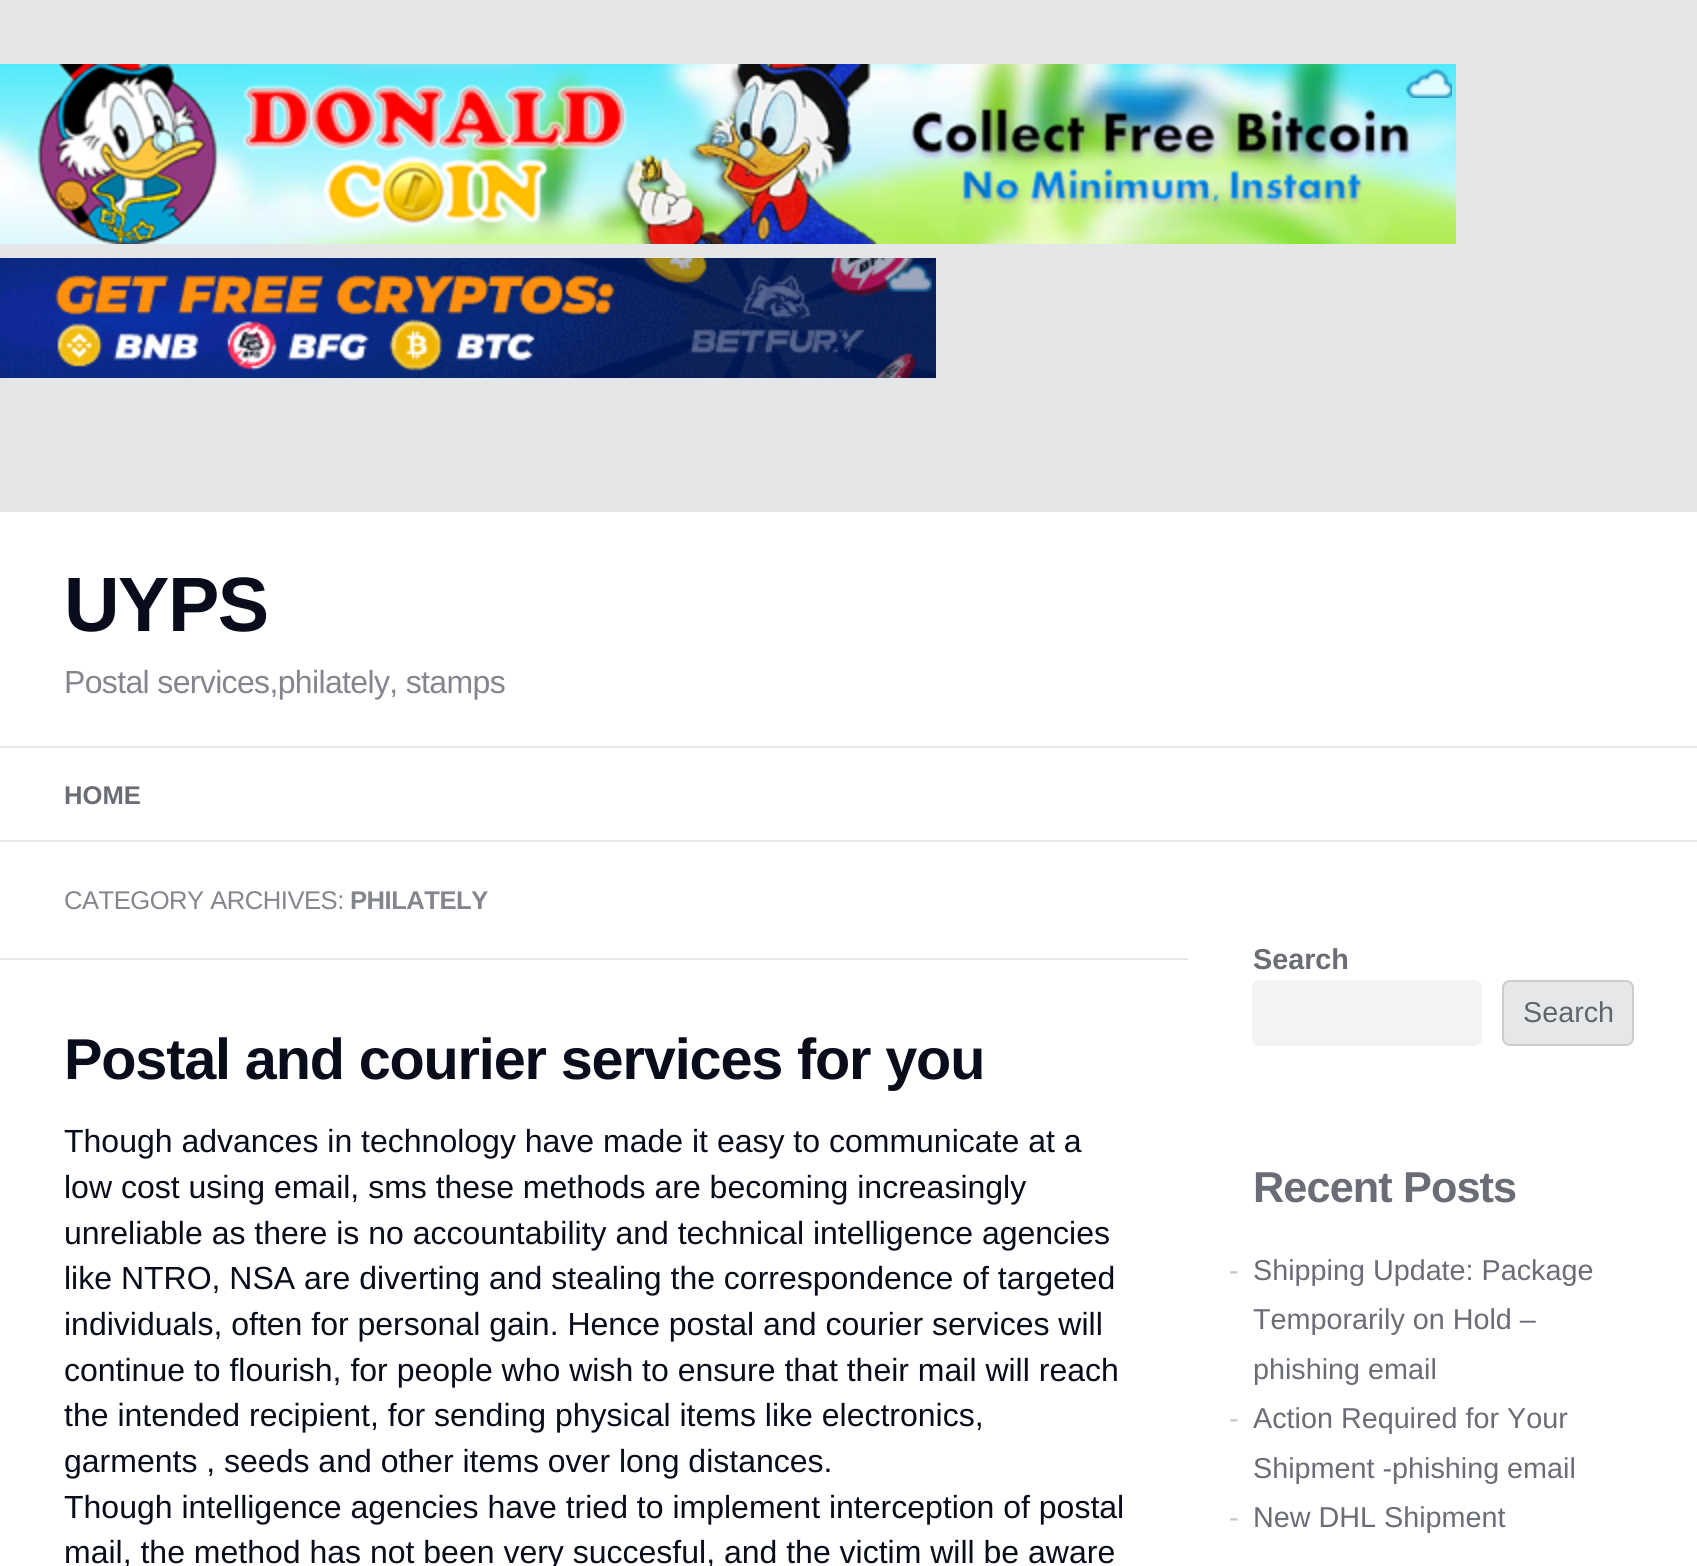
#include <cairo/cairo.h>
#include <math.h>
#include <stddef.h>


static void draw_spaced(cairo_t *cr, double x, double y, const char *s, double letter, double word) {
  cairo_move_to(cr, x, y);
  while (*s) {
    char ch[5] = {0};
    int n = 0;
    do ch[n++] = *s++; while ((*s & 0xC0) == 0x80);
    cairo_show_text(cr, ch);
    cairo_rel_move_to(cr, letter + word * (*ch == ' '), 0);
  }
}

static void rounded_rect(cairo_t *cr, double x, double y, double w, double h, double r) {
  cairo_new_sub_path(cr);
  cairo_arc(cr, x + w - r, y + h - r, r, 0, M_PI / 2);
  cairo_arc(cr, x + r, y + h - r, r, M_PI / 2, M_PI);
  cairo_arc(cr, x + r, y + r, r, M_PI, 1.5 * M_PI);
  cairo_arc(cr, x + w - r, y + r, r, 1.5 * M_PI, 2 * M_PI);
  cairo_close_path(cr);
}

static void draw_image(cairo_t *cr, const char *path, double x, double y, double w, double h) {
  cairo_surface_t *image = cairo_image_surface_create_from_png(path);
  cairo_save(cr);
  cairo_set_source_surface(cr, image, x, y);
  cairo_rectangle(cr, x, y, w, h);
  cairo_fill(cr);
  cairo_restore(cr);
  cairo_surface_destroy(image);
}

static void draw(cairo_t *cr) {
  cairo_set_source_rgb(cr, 228 / 255.0, 230 / 255.0, 231 / 255.0);
  cairo_paint(cr);
  draw_image(cr, "images/1.png", 0, 64, 1456, 180);
  draw_image(cr, "images/2.png", 0, 258, 936, 120);
  cairo_set_source_rgb(cr, 1, 1, 1);
  cairo_rectangle(cr, 0, 512, 1697, 1054);
  cairo_fill(cr);
  cairo_set_source_rgb(cr, 230 / 255.0, 231 / 255.0, 232 / 255.0);
  cairo_rectangle(cr, 0, 746, 1697, 2);
  cairo_fill(cr);
  cairo_rectangle(cr, 0, 840, 1697, 2);
  cairo_fill(cr);
  cairo_rectangle(cr, 0, 958, 1188, 2);
  cairo_fill(cr);
  cairo_set_source_rgb(cr, 243 / 255.0, 243 / 255.0, 244 / 255.0);
  rounded_rect(cr, 1252, 980, 230, 66, 8);
  cairo_fill(cr);
  cairo_set_source_rgb(cr, 230 / 255.0, 231 / 255.0, 232 / 255.0);
  rounded_rect(cr, 1503, 981, 130, 64, 7);
  cairo_fill_preserve(cr);
  cairo_set_source_rgb(cr, 204 / 255.0, 204 / 255.0, 204 / 255.0);
  cairo_stroke(cr);
  cairo_select_font_face(cr, "Liberation Sans", CAIRO_FONT_SLANT_NORMAL, CAIRO_FONT_WEIGHT_BOLD);
  cairo_set_font_size(cr, 77);
  cairo_set_source_rgb(cr, 8 / 255.0, 12 / 255.0, 27 / 255.0);
  draw_spaced(cr, 64, 631, "UYPS", -1.5, 0);
  cairo_select_font_face(cr, "Liberation Sans", CAIRO_FONT_SLANT_NORMAL, CAIRO_FONT_WEIGHT_NORMAL);
  cairo_set_font_size(cr, 32);
  cairo_set_source_rgb(cr, 132 / 255.0, 134 / 255.0, 141 / 255.0);
  draw_spaced(cr, 64, 693, "Postal services,philately, stamps", -0.65, 0);
  cairo_select_font_face(cr, "Liberation Sans", CAIRO_FONT_SLANT_NORMAL, CAIRO_FONT_WEIGHT_BOLD);
  cairo_set_font_size(cr, 25.6);
  cairo_set_source_rgb(cr, 107 / 255.0, 109 / 255.0, 118 / 255.0);
  cairo_move_to(cr, 64, 804);
  cairo_show_text(cr, "HOME");
  cairo_select_font_face(cr, "Liberation Sans", CAIRO_FONT_SLANT_NORMAL, CAIRO_FONT_WEIGHT_NORMAL);
  cairo_set_source_rgb(cr, 132 / 255.0, 134 / 255.0, 141 / 255.0);
  draw_spaced(cr, 64, 909, "CATEGORY ARCHIVES:", -0.5, 0);
  cairo_select_font_face(cr, "Liberation Sans", CAIRO_FONT_SLANT_NORMAL, CAIRO_FONT_WEIGHT_BOLD);
  draw_spaced(cr, 350, 909, "PHILATELY", -0.5, 0);
  cairo_set_font_size(cr, 57.6);
  cairo_set_source_rgb(cr, 8 / 255.0, 12 / 255.0, 27 / 255.0);
  draw_spaced(cr, 64, 1079, "Postal and courier services for you", -1.15, 0);
  cairo_select_font_face(cr, "Liberation Sans", CAIRO_FONT_SLANT_NORMAL, CAIRO_FONT_WEIGHT_NORMAL);
  cairo_set_font_size(cr, 32);
  cairo_move_to(cr, 64, 1152);
  cairo_show_text(cr, "Though advances in technology have made it easy to communicate at a");
  cairo_move_to(cr, 64, 1198);
  cairo_show_text(cr, "low cost using email, sms these methods are becoming increasingly");
  cairo_move_to(cr, 64, 1244);
  cairo_show_text(cr, "unreliable as there is no accountability and technical intelligence agencies");
  cairo_move_to(cr, 64, 1289);
  cairo_show_text(cr, "like NTRO, NSA are diverting and stealing the correspondence of targeted");
  cairo_move_to(cr, 64, 1335);
  cairo_show_text(cr, "individuals, often for personal gain. Hence postal and courier services will");
  cairo_move_to(cr, 64, 1381);
  cairo_show_text(cr, "continue to flourish, for people who wish to ensure that their mail will reach");
  cairo_move_to(cr, 64, 1426);
  cairo_show_text(cr, "the intended recipient, for sending physical items like electronics,");
  cairo_move_to(cr, 64, 1472);
  cairo_show_text(cr, "garments , seeds and other items over long distances.");
  cairo_move_to(cr, 64, 1518);
  cairo_show_text(cr, "Though intelligence agencies have tried to implement interception of postal");
  cairo_move_to(cr, 64, 1563);
  cairo_show_text(cr, "mail, the method has not been very succesful, and the victim will be aware");
  cairo_select_font_face(cr, "Liberation Sans", CAIRO_FONT_SLANT_NORMAL, CAIRO_FONT_WEIGHT_BOLD);
  cairo_set_font_size(cr, 28.75);
  cairo_set_source_rgb(cr, 107 / 255.0, 109 / 255.0, 118 / 255.0);
  cairo_move_to(cr, 1253, 969);
  cairo_show_text(cr, "Search");
  cairo_select_font_face(cr, "Liberation Sans", CAIRO_FONT_SLANT_NORMAL, CAIRO_FONT_WEIGHT_NORMAL);
  cairo_set_source_rgb(cr, 97 / 255.0, 100 / 255.0, 109 / 255.0);
  cairo_move_to(cr, 1523, 1022);
  cairo_show_text(cr, "Search");
  cairo_select_font_face(cr, "Liberation Sans", CAIRO_FONT_SLANT_NORMAL, CAIRO_FONT_WEIGHT_BOLD);
  cairo_set_font_size(cr, 43.25);
  cairo_set_source_rgb(cr, 107 / 255.0, 109 / 255.0, 118 / 255.0);
  draw_spaced(cr, 1253, 1202, "Recent Posts", -0.9, 0);
  cairo_select_font_face(cr, "Liberation Sans", CAIRO_FONT_SLANT_NORMAL, CAIRO_FONT_WEIGHT_NORMAL);
  cairo_set_font_size(cr, 28.75);
  cairo_set_source_rgb(cr, 196 / 255.0, 197 / 255.0, 200 / 255.0);
  cairo_move_to(cr, 1229, 1280);
  cairo_show_text(cr, "-");
  cairo_set_source_rgb(cr, 107 / 255.0, 109 / 255.0, 118 / 255.0);
  cairo_move_to(cr, 1253, 1280);
  cairo_show_text(cr, "Shipping Update: Package");
  cairo_move_to(cr, 1253, 1329);
  cairo_show_text(cr, "Temporarily on Hold –");
  cairo_move_to(cr, 1253, 1379);
  cairo_show_text(cr, "phishing email");
  cairo_set_source_rgb(cr, 196 / 255.0, 197 / 255.0, 200 / 255.0);
  cairo_move_to(cr, 1229, 1428);
  cairo_show_text(cr, "-");
  cairo_set_source_rgb(cr, 107 / 255.0, 109 / 255.0, 118 / 255.0);
  cairo_move_to(cr, 1253, 1428);
  cairo_show_text(cr, "Action Required for Your");
  cairo_move_to(cr, 1253, 1478);
  cairo_show_text(cr, "Shipment -phishing email");
  cairo_set_source_rgb(cr, 196 / 255.0, 197 / 255.0, 200 / 255.0);
  cairo_move_to(cr, 1229, 1527);
  cairo_show_text(cr, "-");
  cairo_set_source_rgb(cr, 107 / 255.0, 109 / 255.0, 118 / 255.0);
  cairo_move_to(cr, 1253, 1527);
  cairo_show_text(cr, "New DHL Shipment");
}

int main(void) {
  cairo_surface_t *surface = cairo_image_surface_create(CAIRO_FORMAT_RGB24, 1697, 1566);
  cairo_t *cr = cairo_create(surface);
  cairo_font_options_t *options = cairo_font_options_create();
  cairo_font_options_set_hint_metrics(options, CAIRO_HINT_METRICS_OFF);
  cairo_font_options_set_hint_style(options, CAIRO_HINT_STYLE_NONE);
  cairo_set_font_options(cr, options);
  cairo_set_miter_limit(cr, 4);
  draw(cr);
  cairo_surface_write_to_png(surface, "out.png");
  cairo_font_options_destroy(options);
  cairo_destroy(cr);
  cairo_surface_destroy(surface);
  return 0;
}
